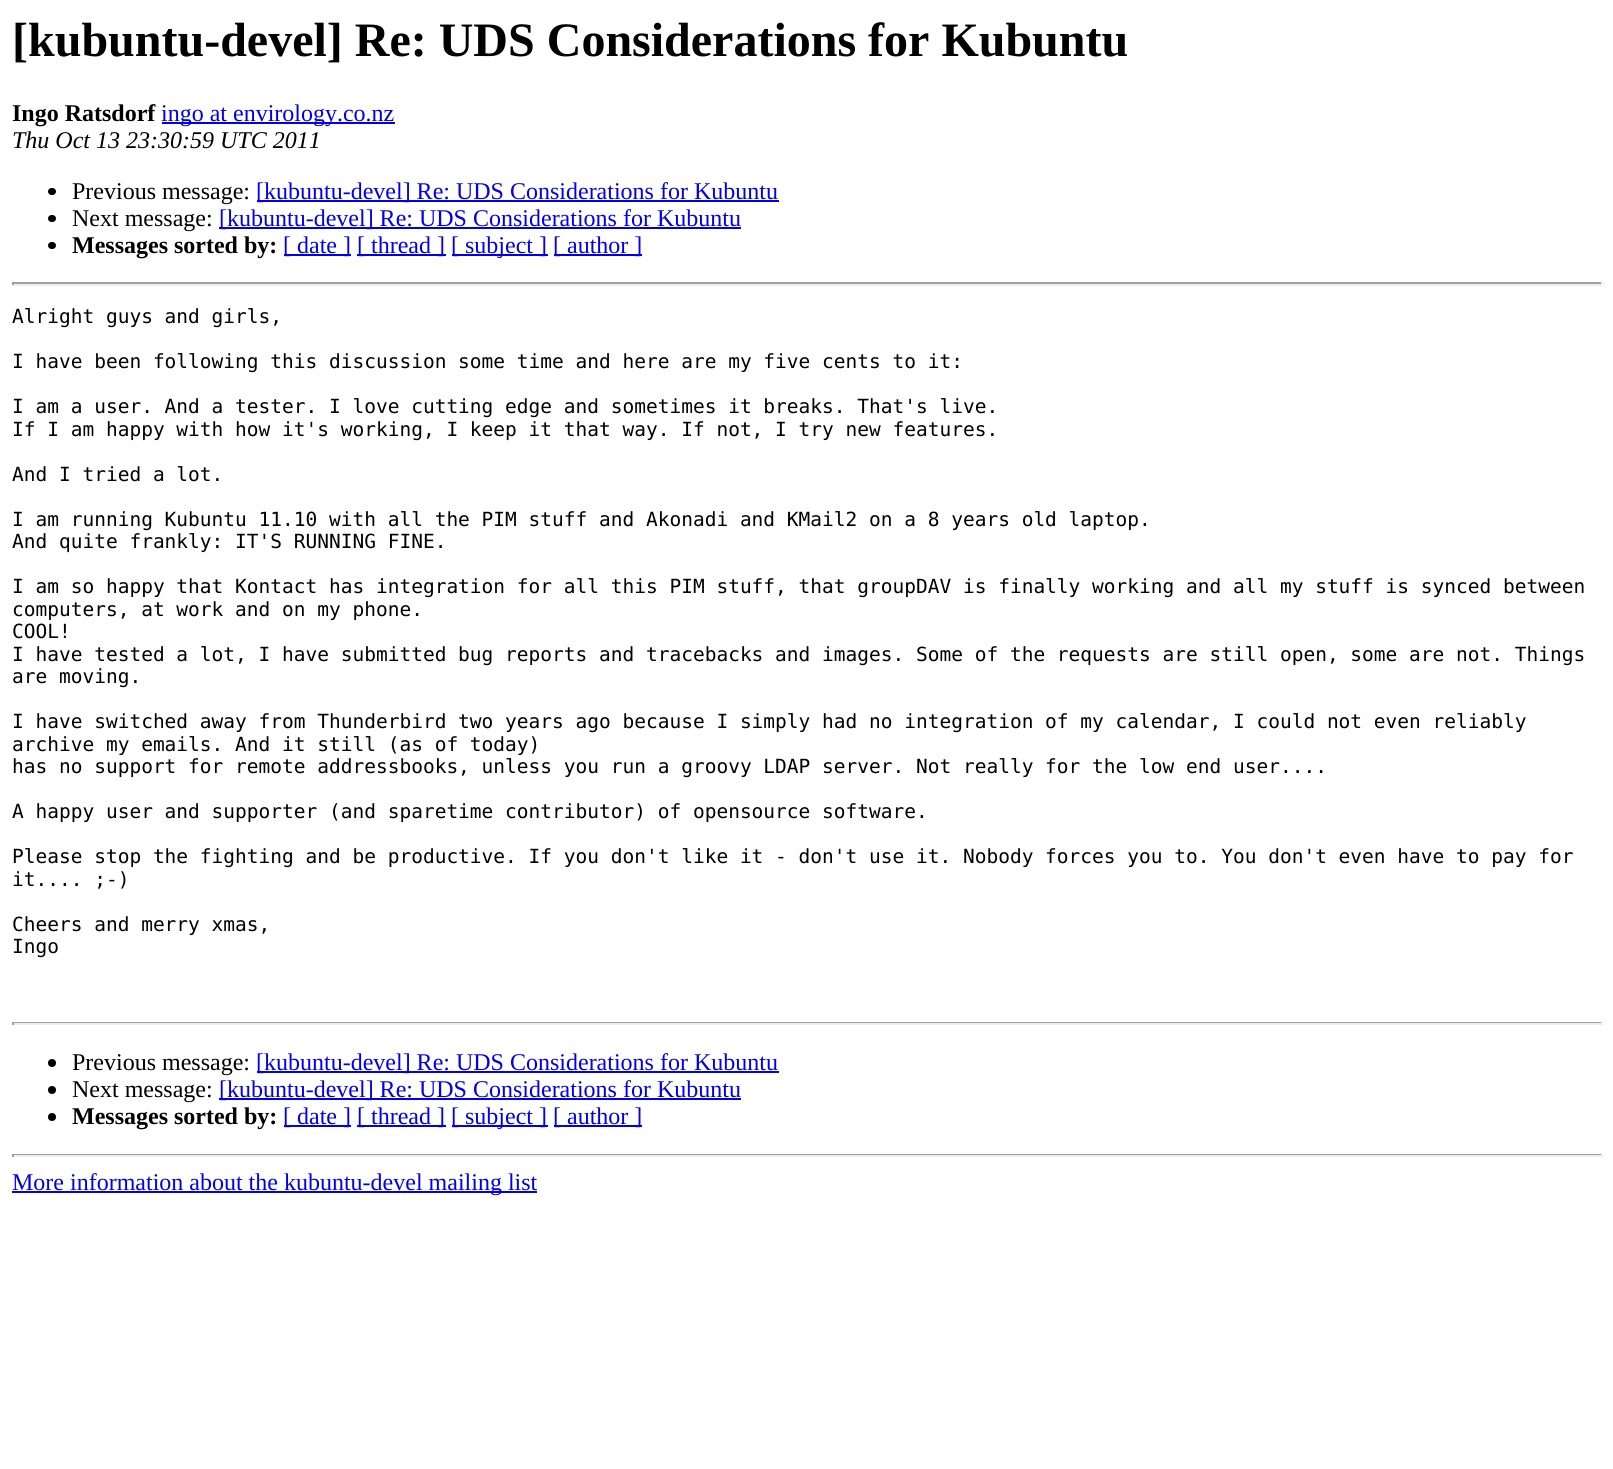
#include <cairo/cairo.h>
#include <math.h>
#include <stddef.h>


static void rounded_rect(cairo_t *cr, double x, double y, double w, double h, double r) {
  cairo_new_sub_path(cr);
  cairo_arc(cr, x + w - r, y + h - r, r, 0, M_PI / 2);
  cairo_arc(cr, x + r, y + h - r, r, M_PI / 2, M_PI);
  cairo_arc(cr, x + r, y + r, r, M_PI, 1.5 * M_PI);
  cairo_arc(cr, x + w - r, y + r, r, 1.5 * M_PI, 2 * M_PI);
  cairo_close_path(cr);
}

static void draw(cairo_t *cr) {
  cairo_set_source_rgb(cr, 1, 1, 1);
  cairo_paint(cr);
  cairo_set_source_rgb(cr, 0, 0, 238 / 255.0);
  cairo_rectangle(cr, 162, 122, 233, 2);
  cairo_fill(cr);
  cairo_set_source_rgb(cr, 0, 0, 0);
  rounded_rect(cr, 48, 188, 8, 7, 3.5);
  cairo_fill(cr);
  cairo_set_source_rgb(cr, 0, 0, 238 / 255.0);
  cairo_rectangle(cr, 257, 200, 522, 2);
  cairo_fill(cr);
  cairo_set_source_rgb(cr, 0, 0, 0);
  rounded_rect(cr, 48, 215, 8, 7, 3.5);
  cairo_fill(cr);
  cairo_set_source_rgb(cr, 0, 0, 238 / 255.0);
  cairo_rectangle(cr, 219, 227, 522, 2);
  cairo_fill(cr);
  cairo_set_source_rgb(cr, 0, 0, 0);
  rounded_rect(cr, 48, 242, 8, 7, 3.5);
  cairo_fill(cr);
  cairo_set_source_rgb(cr, 0, 0, 238 / 255.0);
  cairo_rectangle(cr, 284, 254, 67, 2);
  cairo_fill(cr);
  cairo_rectangle(cr, 357, 254, 89, 2);
  cairo_fill(cr);
  cairo_rectangle(cr, 452, 254, 96, 2);
  cairo_fill(cr);
  cairo_rectangle(cr, 554, 254, 88, 2);
  cairo_fill(cr);
  cairo_set_source_rgb(cr, 159 / 255.0, 159 / 255.0, 159 / 255.0);
  cairo_rectangle(cr, 12, 282, 1590, 2);
  cairo_fill(cr);
  cairo_set_source_rgb(cr, 238 / 255.0, 238 / 255.0, 238 / 255.0);
  cairo_rectangle(cr, 1601, 282, 2, 3);
  cairo_fill(cr);
  cairo_rectangle(cr, 12, 284, 1590, 2);
  cairo_fill(cr);
  cairo_set_source_rgb(cr, 159 / 255.0, 159 / 255.0, 159 / 255.0);
  cairo_rectangle(cr, 12, 282, 2, 3);
  cairo_fill(cr);
  cairo_rectangle(cr, 12, 1022, 1590, 1);
  cairo_fill(cr);
  cairo_set_source_rgb(cr, 238 / 255.0, 238 / 255.0, 238 / 255.0);
  cairo_rectangle(cr, 1601, 1022, 2, 3);
  cairo_fill(cr);
  cairo_rectangle(cr, 12, 1023, 1590, 2);
  cairo_fill(cr);
  cairo_set_source_rgb(cr, 159 / 255.0, 159 / 255.0, 159 / 255.0);
  cairo_rectangle(cr, 12, 1022, 2, 3);
  cairo_fill(cr);
  cairo_set_source_rgb(cr, 0, 0, 0);
  cairo_arc(cr, 52, 1063, 4, 0, 2 * M_PI);
  cairo_fill(cr);
  cairo_set_source_rgb(cr, 0, 0, 238 / 255.0);
  cairo_rectangle(cr, 257, 1071, 522, 2);
  cairo_fill(cr);
  cairo_set_source_rgb(cr, 0, 0, 0);
  cairo_arc(cr, 52, 1090, 4, 0, 2 * M_PI);
  cairo_fill(cr);
  cairo_set_source_rgb(cr, 0, 0, 238 / 255.0);
  cairo_rectangle(cr, 219, 1098, 522, 2);
  cairo_fill(cr);
  cairo_set_source_rgb(cr, 0, 0, 0);
  cairo_arc(cr, 52, 1117, 4, 0, 2 * M_PI);
  cairo_fill(cr);
  cairo_set_source_rgb(cr, 0, 0, 238 / 255.0);
  cairo_rectangle(cr, 284, 1125, 67, 2);
  cairo_fill(cr);
  cairo_rectangle(cr, 357, 1125, 89, 2);
  cairo_fill(cr);
  cairo_rectangle(cr, 452, 1125, 96, 2);
  cairo_fill(cr);
  cairo_rectangle(cr, 554, 1125, 88, 2);
  cairo_fill(cr);
  cairo_set_source_rgb(cr, 159 / 255.0, 159 / 255.0, 159 / 255.0);
  cairo_rectangle(cr, 12, 1154, 1590, 1);
  cairo_fill(cr);
  cairo_set_source_rgb(cr, 238 / 255.0, 238 / 255.0, 238 / 255.0);
  cairo_rectangle(cr, 1601, 1154, 2, 3);
  cairo_fill(cr);
  cairo_rectangle(cr, 12, 1155, 1590, 2);
  cairo_fill(cr);
  cairo_set_source_rgb(cr, 159 / 255.0, 159 / 255.0, 159 / 255.0);
  cairo_rectangle(cr, 12, 1154, 2, 3);
  cairo_fill(cr);
  cairo_set_source_rgb(cr, 0, 0, 238 / 255.0);
  cairo_rectangle(cr, 12, 1191, 525, 2);
  cairo_fill(cr);
  cairo_select_font_face(cr, "Liberation Serif", CAIRO_FONT_SLANT_NORMAL, CAIRO_FONT_WEIGHT_BOLD);
  cairo_set_font_size(cr, 48);
  cairo_set_source_rgb(cr, 0, 0, 0);
  cairo_move_to(cr, 12, 56);
  cairo_show_text(cr, "[kubuntu-devel] Re: UDS Considerations for Kubuntu");
  cairo_set_font_size(cr, 24);
  cairo_move_to(cr, 12, 121);
  cairo_show_text(cr, "Ingo Ratsdorf");
  cairo_select_font_face(cr, "Liberation Serif", CAIRO_FONT_SLANT_NORMAL, CAIRO_FONT_WEIGHT_NORMAL);
  cairo_set_source_rgb(cr, 0, 0, 238 / 255.0);
  cairo_move_to(cr, 161, 121);
  cairo_show_text(cr, "ingo at envirology.co.nz");
  cairo_select_font_face(cr, "Liberation Serif", CAIRO_FONT_SLANT_ITALIC, CAIRO_FONT_WEIGHT_NORMAL);
  cairo_set_source_rgb(cr, 0, 0, 0);
  cairo_move_to(cr, 12, 148);
  cairo_show_text(cr, "Thu Oct 13 23:30:59 UTC 2011");
  cairo_select_font_face(cr, "Liberation Serif", CAIRO_FONT_SLANT_NORMAL, CAIRO_FONT_WEIGHT_NORMAL);
  cairo_move_to(cr, 72, 199);
  cairo_show_text(cr, "Previous message:");
  cairo_set_source_rgb(cr, 0, 0, 238 / 255.0);
  cairo_move_to(cr, 256, 199);
  cairo_show_text(cr, "[kubuntu-devel] Re: UDS Considerations for Kubuntu");
  cairo_set_source_rgb(cr, 0, 0, 0);
  cairo_move_to(cr, 72, 226);
  cairo_show_text(cr, "Next message:");
  cairo_set_source_rgb(cr, 0, 0, 238 / 255.0);
  cairo_move_to(cr, 219, 226);
  cairo_show_text(cr, "[kubuntu-devel] Re: UDS Considerations for Kubuntu");
  cairo_select_font_face(cr, "Liberation Serif", CAIRO_FONT_SLANT_NORMAL, CAIRO_FONT_WEIGHT_BOLD);
  cairo_set_source_rgb(cr, 0, 0, 0);
  cairo_move_to(cr, 72, 253);
  cairo_show_text(cr, "Messages sorted by:");
  cairo_select_font_face(cr, "Liberation Serif", CAIRO_FONT_SLANT_NORMAL, CAIRO_FONT_WEIGHT_NORMAL);
  cairo_set_source_rgb(cr, 0, 0, 238 / 255.0);
  cairo_move_to(cr, 283, 253);
  cairo_show_text(cr, "[ date ]");
  cairo_move_to(cr, 357, 253);
  cairo_show_text(cr, "[ thread ]");
  cairo_move_to(cr, 451, 253);
  cairo_show_text(cr, "[ subject ]");
  cairo_move_to(cr, 553, 253);
  cairo_show_text(cr, "[ author ]");
  cairo_select_font_face(cr, "DejaVu Sans Mono", CAIRO_FONT_SLANT_NORMAL, CAIRO_FONT_WEIGHT_NORMAL);
  cairo_set_font_size(cr, 19.5);
  cairo_set_source_rgb(cr, 0, 0, 0);
  cairo_move_to(cr, 12, 323);
  cairo_show_text(cr, "Alright guys and girls,");
  cairo_move_to(cr, 12, 368);
  cairo_show_text(cr, "I have been following this discussion some time and here are my five cents to it:");
  cairo_move_to(cr, 12, 413);
  cairo_show_text(cr, "I am a user. And a tester. I love cutting edge and sometimes it breaks. That's live.");
  cairo_move_to(cr, 12, 436);
  cairo_show_text(cr, "If I am happy with how it's working, I keep it that way. If not, I try new features.");
  cairo_move_to(cr, 12, 481);
  cairo_show_text(cr, "And I tried a lot.");
  cairo_move_to(cr, 12, 526);
  cairo_show_text(cr, "I am running Kubuntu 11.10 with all the PIM stuff and Akonadi and KMail2 on a 8 years old laptop.");
  cairo_move_to(cr, 12, 548);
  cairo_show_text(cr, "And quite frankly: IT'S RUNNING FINE.");
  cairo_move_to(cr, 12, 593);
  cairo_show_text(cr, "I am so happy that Kontact has integration for all this PIM stuff, that groupDAV is finally working and all my stuff is synced between");
  cairo_move_to(cr, 12, 616);
  cairo_show_text(cr, "computers, at work and on my phone.");
  cairo_move_to(cr, 12, 638);
  cairo_show_text(cr, "COOL!");
  cairo_move_to(cr, 12, 661);
  cairo_show_text(cr, "I have tested a lot, I have submitted bug reports and tracebacks and images. Some of the requests are still open, some are not. Things");
  cairo_move_to(cr, 12, 683);
  cairo_show_text(cr, "are moving.");
  cairo_move_to(cr, 12, 728);
  cairo_show_text(cr, "I have switched away from Thunderbird two years ago because I simply had no integration of my calendar, I could not even reliably");
  cairo_move_to(cr, 12, 751);
  cairo_show_text(cr, "archive my emails. And it still (as of today)");
  cairo_move_to(cr, 12, 773);
  cairo_show_text(cr, "has no support for remote addressbooks, unless you run a groovy LDAP server. Not really for the low end user....");
  cairo_move_to(cr, 12, 818);
  cairo_show_text(cr, "A happy user and supporter (and sparetime contributor) of opensource software.");
  cairo_move_to(cr, 12, 863);
  cairo_show_text(cr, "Please stop the fighting and be productive. If you don't like it - don't use it. Nobody forces you to. You don't even have to pay for");
  cairo_move_to(cr, 12, 886);
  cairo_show_text(cr, "it.... ;-)");
  cairo_move_to(cr, 12, 931);
  cairo_show_text(cr, "Cheers and merry xmas,");
  cairo_move_to(cr, 12, 953);
  cairo_show_text(cr, "Ingo");
  cairo_select_font_face(cr, "Liberation Serif", CAIRO_FONT_SLANT_NORMAL, CAIRO_FONT_WEIGHT_NORMAL);
  cairo_set_font_size(cr, 24);
  cairo_move_to(cr, 72, 1070);
  cairo_show_text(cr, "Previous message:");
  cairo_set_source_rgb(cr, 0, 0, 238 / 255.0);
  cairo_move_to(cr, 256, 1070);
  cairo_show_text(cr, "[kubuntu-devel] Re: UDS Considerations for Kubuntu");
  cairo_set_source_rgb(cr, 0, 0, 0);
  cairo_move_to(cr, 72, 1097);
  cairo_show_text(cr, "Next message:");
  cairo_set_source_rgb(cr, 0, 0, 238 / 255.0);
  cairo_move_to(cr, 219, 1097);
  cairo_show_text(cr, "[kubuntu-devel] Re: UDS Considerations for Kubuntu");
  cairo_select_font_face(cr, "Liberation Serif", CAIRO_FONT_SLANT_NORMAL, CAIRO_FONT_WEIGHT_BOLD);
  cairo_set_source_rgb(cr, 0, 0, 0);
  cairo_move_to(cr, 72, 1124);
  cairo_show_text(cr, "Messages sorted by:");
  cairo_select_font_face(cr, "Liberation Serif", CAIRO_FONT_SLANT_NORMAL, CAIRO_FONT_WEIGHT_NORMAL);
  cairo_set_source_rgb(cr, 0, 0, 238 / 255.0);
  cairo_move_to(cr, 283, 1124);
  cairo_show_text(cr, "[ date ]");
  cairo_move_to(cr, 357, 1124);
  cairo_show_text(cr, "[ thread ]");
  cairo_move_to(cr, 451, 1124);
  cairo_show_text(cr, "[ subject ]");
  cairo_move_to(cr, 553, 1124);
  cairo_show_text(cr, "[ author ]");
  cairo_move_to(cr, 12, 1190);
  cairo_show_text(cr, "More information about the kubuntu-devel mailing list");
}

int main(void) {
  cairo_surface_t *surface = cairo_image_surface_create(CAIRO_FORMAT_RGB24, 1613, 1469);
  cairo_t *cr = cairo_create(surface);
  cairo_font_options_t *options = cairo_font_options_create();
  cairo_font_options_set_hint_metrics(options, CAIRO_HINT_METRICS_OFF);
  cairo_font_options_set_hint_style(options, CAIRO_HINT_STYLE_NONE);
  cairo_set_font_options(cr, options);
  cairo_set_miter_limit(cr, 4);
  draw(cr);
  cairo_surface_write_to_png(surface, "out.png");
  cairo_font_options_destroy(options);
  cairo_destroy(cr);
  cairo_surface_destroy(surface);
  return 0;
}
